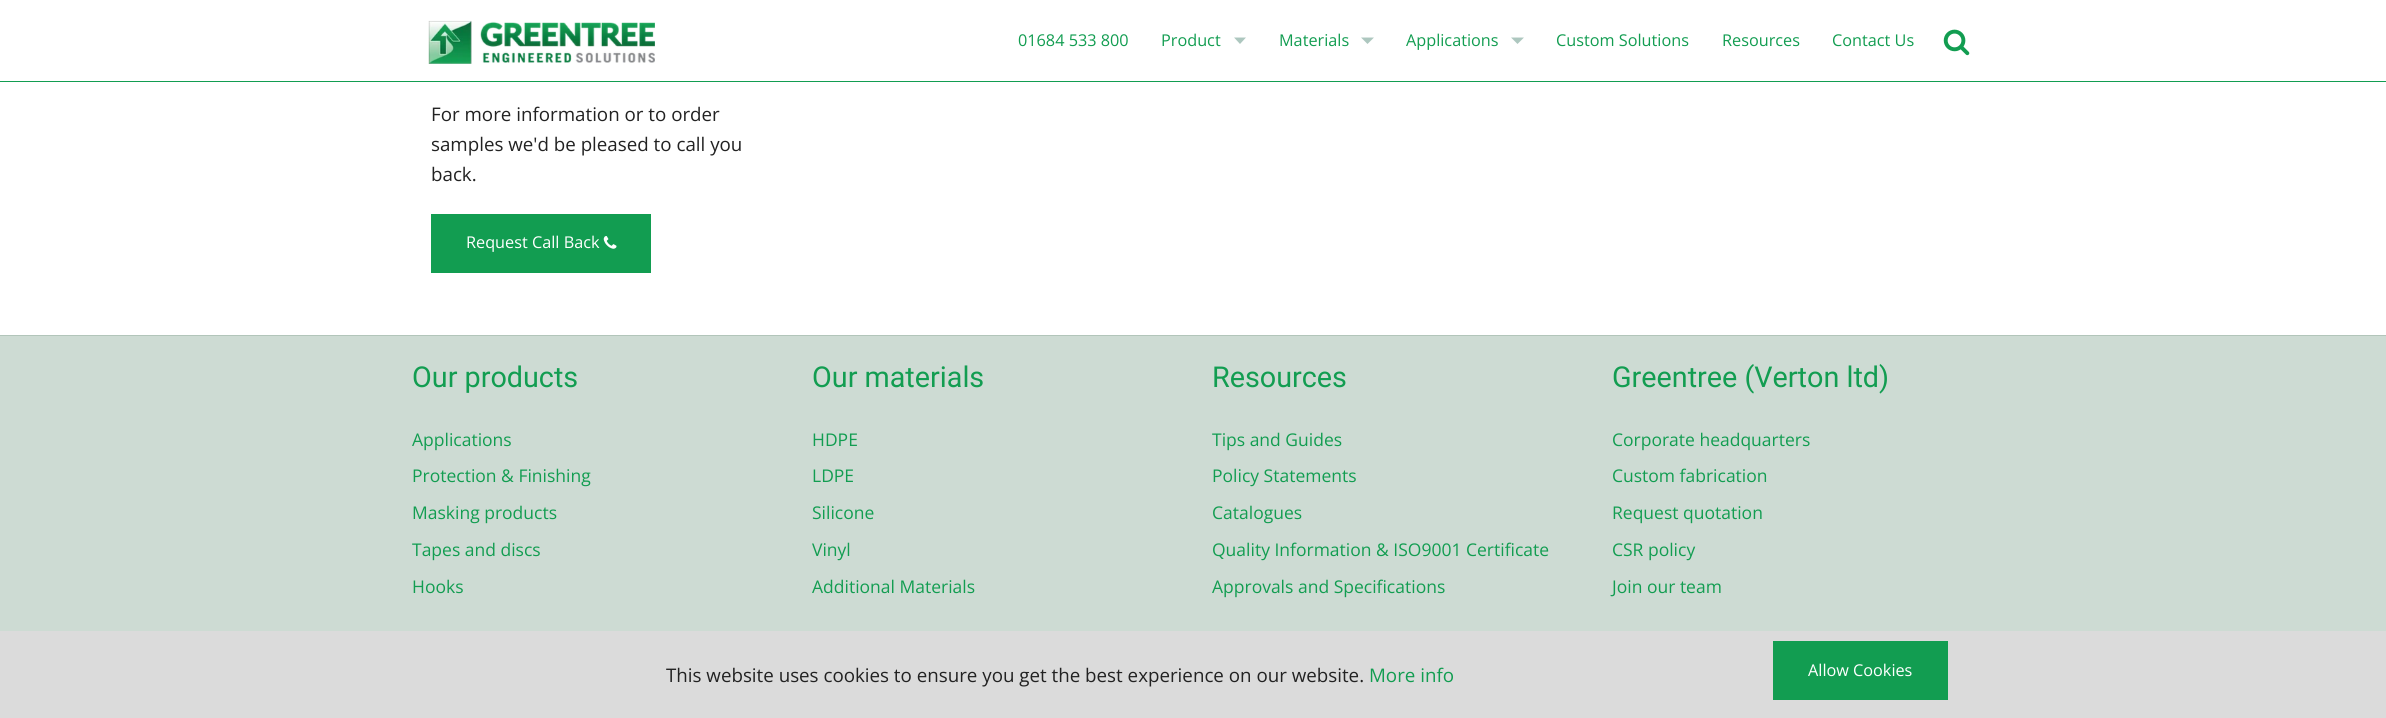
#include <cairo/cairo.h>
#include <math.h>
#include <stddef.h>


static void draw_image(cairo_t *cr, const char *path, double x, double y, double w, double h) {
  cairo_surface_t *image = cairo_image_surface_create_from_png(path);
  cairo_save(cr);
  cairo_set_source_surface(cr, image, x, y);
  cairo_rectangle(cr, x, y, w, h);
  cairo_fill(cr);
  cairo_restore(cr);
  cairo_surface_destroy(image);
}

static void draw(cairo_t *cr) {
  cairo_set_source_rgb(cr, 1, 1, 1);
  cairo_paint(cr);
  cairo_set_source_rgb(cr, 18 / 255.0, 157 / 255.0, 81 / 255.0);
  cairo_rectangle(cr, 0, 81, 2386, 1);
  cairo_fill(cr);
  draw_image(cr, "images/1.png", 428, 20, 227, 44);
  cairo_set_source_rgb(cr, 173 / 255.0, 199 / 255.0, 191 / 255.0);
  cairo_new_path(cr);
  cairo_move_to(cr, 1234, 37.5);
  cairo_line_to(cr, 1246, 37.5);
  cairo_line_to(cr, 1240, 44);
  cairo_close_path(cr);
  cairo_fill(cr);
  cairo_new_path(cr);
  cairo_move_to(cr, 1361, 37.5);
  cairo_line_to(cr, 1374, 37.5);
  cairo_line_to(cr, 1367.5, 44);
  cairo_close_path(cr);
  cairo_fill(cr);
  cairo_new_path(cr);
  cairo_move_to(cr, 1511, 37.5);
  cairo_line_to(cr, 1524, 37.5);
  cairo_line_to(cr, 1517.5, 44);
  cairo_close_path(cr);
  cairo_fill(cr);
  draw_image(cr, "images/2.png", 1943, 29, 27, 27);
  cairo_set_source_rgb(cr, 18 / 255.0, 157 / 255.0, 81 / 255.0);
  cairo_rectangle(cr, 431, 214, 220, 59);
  cairo_fill(cr);
  draw_image(cr, "images/3.png", 603, 236, 14, 13);
  cairo_set_source_rgb(cr, 205 / 255.0, 219 / 255.0, 211 / 255.0);
  cairo_rectangle(cr, 0, 336, 2386, 295);
  cairo_fill(cr);
  cairo_set_source_rgb(cr, 178 / 255.0, 197 / 255.0, 186 / 255.0);
  cairo_rectangle(cr, 0, 335, 2386, 1);
  cairo_fill(cr);
  cairo_set_source_rgb(cr, 219 / 255.0, 219 / 255.0, 219 / 255.0);
  cairo_rectangle(cr, 0, 631, 2386, 87);
  cairo_fill(cr);
  cairo_set_source_rgb(cr, 18 / 255.0, 157 / 255.0, 81 / 255.0);
  cairo_rectangle(cr, 1773, 641, 175, 59);
  cairo_fill(cr);
  cairo_select_font_face(cr, "Open Sans", CAIRO_FONT_SLANT_NORMAL, CAIRO_FONT_WEIGHT_NORMAL);
  cairo_set_font_size(cr, 16.25);
  cairo_move_to(cr, 1018, 46);
  cairo_show_text(cr, "01684 533 800");
  cairo_move_to(cr, 1161, 46);
  cairo_show_text(cr, "Product");
  cairo_move_to(cr, 1279, 46);
  cairo_show_text(cr, "Materials");
  cairo_move_to(cr, 1406, 46);
  cairo_show_text(cr, "Applications");
  cairo_move_to(cr, 1556, 46);
  cairo_show_text(cr, "Custom Solutions");
  cairo_move_to(cr, 1722, 46);
  cairo_show_text(cr, "Resources");
  cairo_move_to(cr, 1832, 46);
  cairo_show_text(cr, "Contact Us");
  cairo_set_font_size(cr, 18.75);
  cairo_set_source_rgb(cr, 34 / 255.0, 34 / 255.0, 34 / 255.0);
  cairo_move_to(cr, 431, 121);
  cairo_show_text(cr, "For more information or to order");
  cairo_move_to(cr, 431, 151);
  cairo_show_text(cr, "samples we'd be pleased to call you");
  cairo_move_to(cr, 431, 181);
  cairo_show_text(cr, "back.");
  cairo_set_font_size(cr, 16.25);
  cairo_set_source_rgb(cr, 1, 1, 1);
  cairo_move_to(cr, 466, 248);
  cairo_show_text(cr, "Request Call Back");
  cairo_select_font_face(cr, "Roboto", CAIRO_FONT_SLANT_NORMAL, CAIRO_FONT_WEIGHT_NORMAL);
  cairo_set_font_size(cr, 28.75);
  cairo_set_source_rgb(cr, 18 / 255.0, 157 / 255.0, 81 / 255.0);
  cairo_move_to(cr, 412, 387);
  cairo_show_text(cr, "Our products");
  cairo_select_font_face(cr, "Open Sans", CAIRO_FONT_SLANT_NORMAL, CAIRO_FONT_WEIGHT_NORMAL);
  cairo_set_font_size(cr, 17.5);
  cairo_move_to(cr, 412, 446);
  cairo_show_text(cr, "Applications");
  cairo_move_to(cr, 412, 482);
  cairo_show_text(cr, "Protection & Finishing");
  cairo_move_to(cr, 412, 519);
  cairo_show_text(cr, "Masking products");
  cairo_move_to(cr, 412, 556);
  cairo_show_text(cr, "Tapes and discs");
  cairo_move_to(cr, 412, 593);
  cairo_show_text(cr, "Hooks");
  cairo_select_font_face(cr, "Roboto", CAIRO_FONT_SLANT_NORMAL, CAIRO_FONT_WEIGHT_NORMAL);
  cairo_set_font_size(cr, 28.75);
  cairo_move_to(cr, 812, 387);
  cairo_show_text(cr, "Our materials");
  cairo_select_font_face(cr, "Open Sans", CAIRO_FONT_SLANT_NORMAL, CAIRO_FONT_WEIGHT_NORMAL);
  cairo_set_font_size(cr, 17.5);
  cairo_move_to(cr, 812, 446);
  cairo_show_text(cr, "HDPE");
  cairo_move_to(cr, 812, 482);
  cairo_show_text(cr, "LDPE");
  cairo_move_to(cr, 812, 519);
  cairo_show_text(cr, "Silicone");
  cairo_move_to(cr, 812, 556);
  cairo_show_text(cr, "Vinyl");
  cairo_move_to(cr, 812, 593);
  cairo_show_text(cr, "Additional Materials");
  cairo_select_font_face(cr, "Roboto", CAIRO_FONT_SLANT_NORMAL, CAIRO_FONT_WEIGHT_NORMAL);
  cairo_set_font_size(cr, 28.75);
  cairo_move_to(cr, 1212, 387);
  cairo_show_text(cr, "Resources");
  cairo_select_font_face(cr, "Open Sans", CAIRO_FONT_SLANT_NORMAL, CAIRO_FONT_WEIGHT_NORMAL);
  cairo_set_font_size(cr, 17.5);
  cairo_move_to(cr, 1212, 446);
  cairo_show_text(cr, "Tips and Guides");
  cairo_move_to(cr, 1212, 482);
  cairo_show_text(cr, "Policy Statements");
  cairo_move_to(cr, 1212, 519);
  cairo_show_text(cr, "Catalogues");
  cairo_move_to(cr, 1212, 556);
  cairo_show_text(cr, "Quality Information & ISO9001 Certificate");
  cairo_move_to(cr, 1212, 593);
  cairo_show_text(cr, "Approvals and Specifications");
  cairo_select_font_face(cr, "Roboto", CAIRO_FONT_SLANT_NORMAL, CAIRO_FONT_WEIGHT_NORMAL);
  cairo_set_font_size(cr, 28.75);
  cairo_move_to(cr, 1612, 387);
  cairo_show_text(cr, "Greentree (Verton ltd)");
  cairo_select_font_face(cr, "Open Sans", CAIRO_FONT_SLANT_NORMAL, CAIRO_FONT_WEIGHT_NORMAL);
  cairo_set_font_size(cr, 17.5);
  cairo_move_to(cr, 1612, 446);
  cairo_show_text(cr, "Corporate headquarters");
  cairo_move_to(cr, 1612, 482);
  cairo_show_text(cr, "Custom fabrication");
  cairo_move_to(cr, 1612, 519);
  cairo_show_text(cr, "Request quotation");
  cairo_move_to(cr, 1612, 556);
  cairo_show_text(cr, "CSR policy");
  cairo_move_to(cr, 1612, 593);
  cairo_show_text(cr, "Join our team");
  cairo_set_font_size(cr, 18.75);
  cairo_set_source_rgb(cr, 34 / 255.0, 34 / 255.0, 34 / 255.0);
  cairo_move_to(cr, 666, 682);
  cairo_show_text(cr, "This website uses cookies to ensure you get the best experience on our website.");
  cairo_set_source_rgb(cr, 18 / 255.0, 157 / 255.0, 81 / 255.0);
  cairo_move_to(cr, 1369, 682);
  cairo_show_text(cr, "More info");
  cairo_set_font_size(cr, 16.25);
  cairo_set_source_rgb(cr, 1, 1, 1);
  cairo_move_to(cr, 1808, 676);
  cairo_show_text(cr, "Allow Cookies");
}

int main(void) {
  cairo_surface_t *surface = cairo_image_surface_create(CAIRO_FORMAT_RGB24, 2386, 718);
  cairo_t *cr = cairo_create(surface);
  cairo_font_options_t *options = cairo_font_options_create();
  cairo_font_options_set_hint_metrics(options, CAIRO_HINT_METRICS_OFF);
  cairo_font_options_set_hint_style(options, CAIRO_HINT_STYLE_NONE);
  cairo_set_font_options(cr, options);
  cairo_set_miter_limit(cr, 4);
  draw(cr);
  cairo_surface_write_to_png(surface, "out.png");
  cairo_font_options_destroy(options);
  cairo_destroy(cr);
  cairo_surface_destroy(surface);
  return 0;
}
